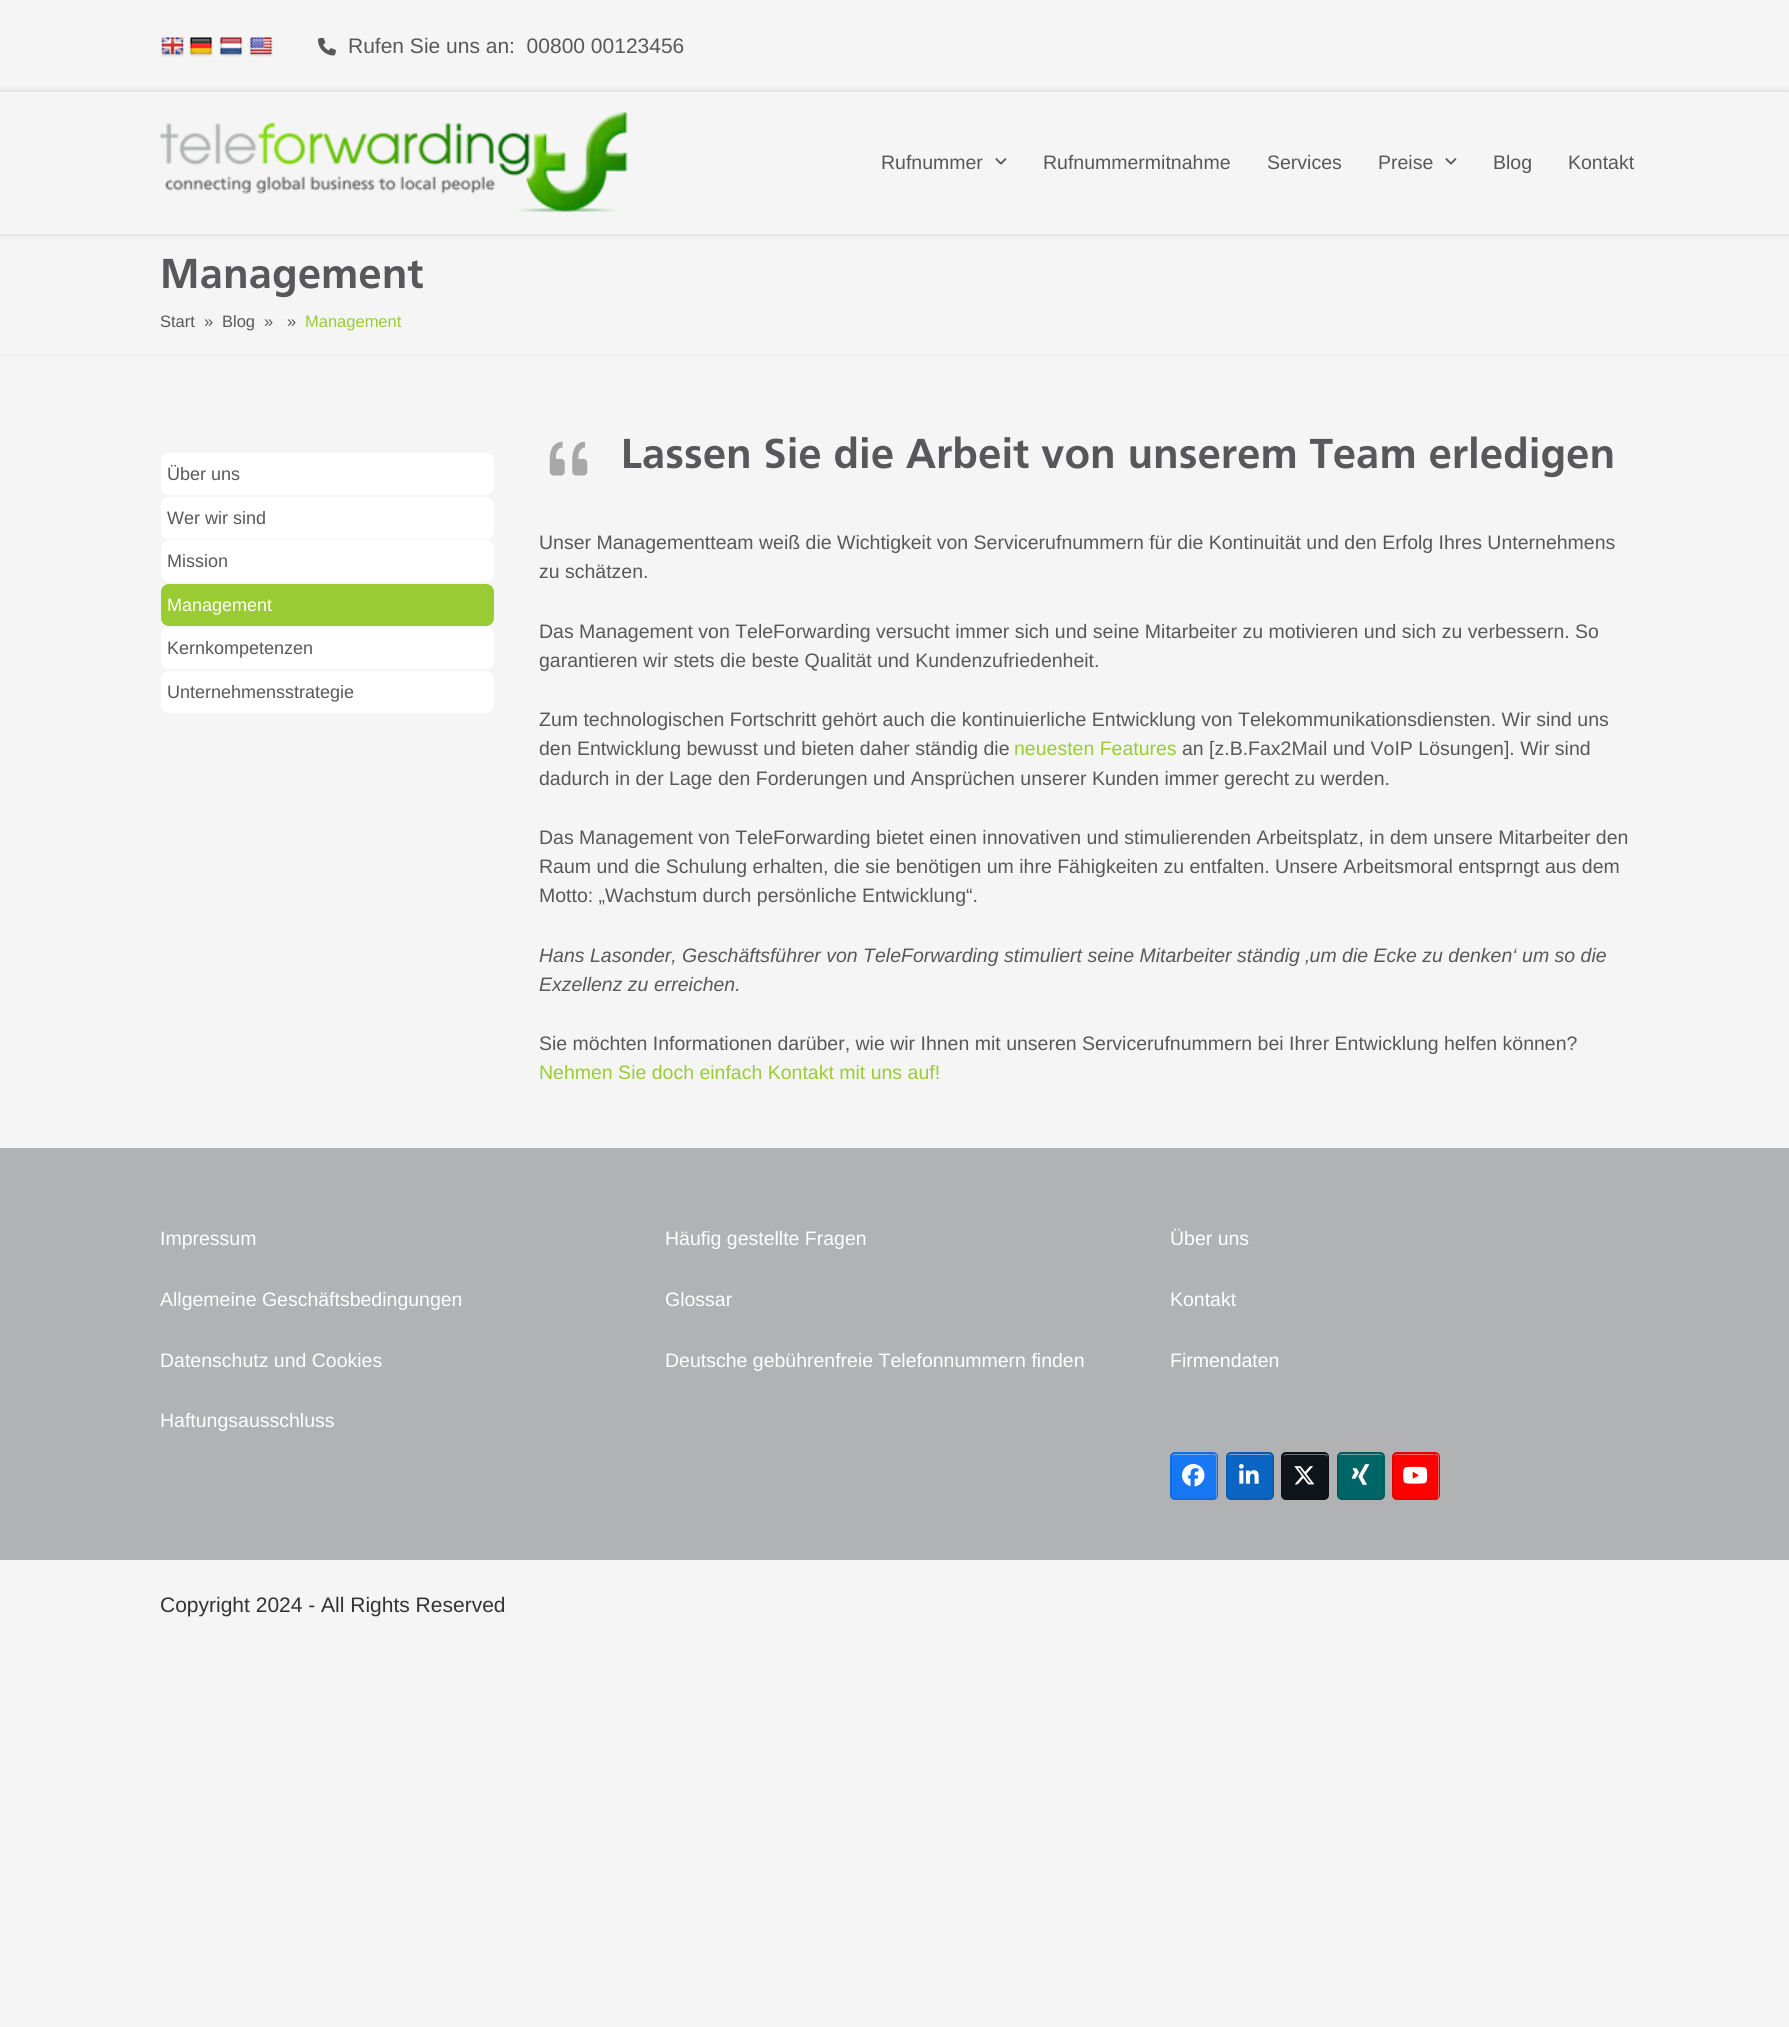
#include <cairo/cairo.h>
#include <math.h>
#include <stddef.h>


static void rounded_rect(cairo_t *cr, double x, double y, double w, double h, double r) {
  cairo_new_sub_path(cr);
  cairo_arc(cr, x + w - r, y + h - r, r, 0, M_PI / 2);
  cairo_arc(cr, x + r, y + h - r, r, M_PI / 2, M_PI);
  cairo_arc(cr, x + r, y + r, r, M_PI, 1.5 * M_PI);
  cairo_arc(cr, x + w - r, y + r, r, 1.5 * M_PI, 2 * M_PI);
  cairo_close_path(cr);
}

static void draw_shadow(cairo_t *cr, double x, double y, double w, double h, double r, double blur, double alpha) {
  cairo_push_group_with_content(cr, CAIRO_CONTENT_ALPHA);
  cairo_set_operator(cr, CAIRO_OPERATOR_SOURCE);
  for (int i = 15; i >= -15 && fmin(w, h) + blur * i / 3 > 0; i -= 2) {
    double e = blur * i / 6;
    cairo_set_source_rgba(cr, 0, 0, 0, alpha * erfc((i - 1) / 8.5) / 2);
    rounded_rect(cr, x - e, y - e, w + 2 * e, h + 2 * e, fmax(0, fmin(r + e + blur * .6, fmin(w, h) / 2 + e)));
    cairo_fill(cr);
  }
  cairo_pattern_t *soft = cairo_pop_group(cr);
  cairo_mask(cr, soft);
  cairo_pattern_destroy(soft);
}

static void draw_image(cairo_t *cr, const char *path, double x, double y, double w, double h) {
  cairo_surface_t *image = cairo_image_surface_create_from_png(path);
  cairo_save(cr);
  cairo_set_source_surface(cr, image, x, y);
  cairo_rectangle(cr, x, y, w, h);
  cairo_fill(cr);
  cairo_restore(cr);
  cairo_surface_destroy(image);
}

static void draw(cairo_t *cr) {
  cairo_set_source_rgb(cr, 245 / 255.0, 245 / 255.0, 245 / 255.0);
  cairo_paint(cr);
  cairo_set_source_rgb(cr, 238 / 255.0, 238 / 255.0, 238 / 255.0);
  cairo_rectangle(cr, 0, 90, 1789, 2);
  cairo_fill(cr);
  draw_image(cr, "images/1.png", 161, 37, 23, 20);
  draw_image(cr, "images/2.png", 189, 37, 24, 20);
  draw_image(cr, "images/3.png", 219, 37, 24, 20);
  draw_image(cr, "images/4.png", 249, 37, 24, 20);
  draw_image(cr, "images/5.png", 318, 38, 18, 18);
  cairo_rectangle(cr, 0, 234, 1789, 2);
  cairo_fill(cr);
  cairo_save(cr);
  cairo_set_fill_rule(cr, CAIRO_FILL_RULE_EVEN_ODD);
  cairo_new_path(cr);
  cairo_move_to(cr, 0, 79);
  cairo_line_to(cr, 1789, 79);
  cairo_line_to(cr, 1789, 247);
  cairo_line_to(cr, 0, 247);
  cairo_close_path(cr);
  cairo_move_to(cr, 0, 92);
  cairo_line_to(cr, 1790, 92);
  cairo_line_to(cr, 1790, 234);
  cairo_line_to(cr, 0, 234);
  cairo_close_path(cr);
  cairo_clip(cr);
  cairo_set_source_rgb(cr, 0, 0, 0);
  draw_shadow(cr, 0, 92, 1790, 142, 0, 4, 0.1);
  cairo_restore(cr);
  draw_image(cr, "images/6.png", 160, 111, 468, 101);
  draw_image(cr, "images/7.png", 995, 158, 12, 7);
  draw_image(cr, "images/7.png", 1445, 158, 12, 7);
  cairo_rectangle(cr, 0, 354, 1789, 2);
  cairo_fill(cr);
  cairo_set_source_rgb(cr, 1, 1, 1);
  rounded_rect(cr, 161, 453, 333, 42, 8);
  cairo_fill(cr);
  rounded_rect(cr, 161, 497, 333, 42, 8);
  cairo_fill(cr);
  rounded_rect(cr, 161, 540, 333, 42, 8);
  cairo_fill(cr);
  cairo_set_source_rgb(cr, 153 / 255.0, 204 / 255.0, 51 / 255.0);
  rounded_rect(cr, 161, 584, 333, 42, 8);
  cairo_fill(cr);
  cairo_set_source_rgb(cr, 1, 1, 1);
  rounded_rect(cr, 161, 627, 333, 42, 8);
  cairo_fill(cr);
  rounded_rect(cr, 161, 671, 333, 42, 8);
  cairo_fill(cr);
  draw_image(cr, "images/8.png", 549, 441, 39, 35);
  cairo_set_source_rgb(cr, 177 / 255.0, 178 / 255.0, 180 / 255.0);
  cairo_rectangle(cr, 0, 1148, 1789, 412);
  cairo_fill(cr);
  cairo_set_source_rgb(cr, 24 / 255.0, 119 / 255.0, 242 / 255.0);
  rounded_rect(cr, 1170, 1452, 48, 48, 5);
  cairo_fill(cr);
  cairo_set_source_rgb(cr, 116 / 255.0, 173 / 255.0, 247 / 255.0);
  cairo_new_path(cr);
  cairo_move_to(cr, 1174, 1455);
  cairo_line_to(cr, 1207, 1455);
  cairo_curve_to(cr, 1211, 1455, 1216, 1453, 1216, 1458);
  cairo_line_to(cr, 1216, 1498);
  cairo_curve_to(cr, 1217, 1498, 1217, 1497, 1217, 1496);
  cairo_line_to(cr, 1217, 1457);
  cairo_curve_to(cr, 1217, 1455, 1216, 1454, 1214, 1454);
  cairo_line_to(cr, 1175, 1454);
  cairo_curve_to(cr, 1173, 1454, 1172, 1455, 1172, 1457);
  cairo_line_to(cr, 1172, 1458);
  cairo_curve_to(cr, 1172, 1456, 1173, 1455, 1174, 1455);
  cairo_close_path(cr);
  cairo_fill(cr);
  rounded_rect(cr, 1171, 1453, 46, 46, 4);
  cairo_set_source_rgba(cr, 0, 0, 0, 0.1);
  cairo_stroke(cr);
  draw_image(cr, "images/9.png", 1182, 1464, 23, 23);
  cairo_set_source_rgb(cr, 10 / 255.0, 102 / 255.0, 194 / 255.0);
  rounded_rect(cr, 1226, 1452, 48, 48, 5);
  cairo_fill(cr);
  cairo_set_source_rgb(cr, 108 / 255.0, 163 / 255.0, 218 / 255.0);
  cairo_new_path(cr);
  cairo_move_to(cr, 1230, 1455);
  cairo_line_to(cr, 1269, 1455);
  cairo_curve_to(cr, 1271, 1455, 1272, 1456, 1272, 1458);
  cairo_curve_to(cr, 1272, 1453, 1267, 1454, 1262, 1454);
  cairo_line_to(cr, 1236, 1454);
  cairo_curve_to(cr, 1232, 1454, 1227, 1453, 1227, 1458);
  cairo_curve_to(cr, 1227, 1456, 1228, 1455, 1230, 1455);
  cairo_close_path(cr);
  cairo_fill(cr);
  rounded_rect(cr, 1227, 1453, 46, 46, 4);
  cairo_set_source_rgba(cr, 0, 0, 0, 0.1);
  cairo_stroke(cr);
  draw_image(cr, "images/10.png", 1239, 1464, 20, 20);
  cairo_set_source_rgb(cr, 15 / 255.0, 20 / 255.0, 26 / 255.0);
  rounded_rect(cr, 1281, 1452, 48, 48, 5);
  cairo_fill(cr);
  cairo_set_source_rgb(cr, 111 / 255.0, 114 / 255.0, 118 / 255.0);
  cairo_new_path(cr);
  cairo_move_to(cr, 1286, 1455);
  cairo_line_to(cr, 1324, 1455);
  cairo_curve_to(cr, 1326, 1455, 1328, 1456, 1328, 1458);
  cairo_line_to(cr, 1328, 1457);
  cairo_curve_to(cr, 1328, 1455, 1327, 1454, 1325, 1454);
  cairo_line_to(cr, 1286, 1454);
  cairo_curve_to(cr, 1285, 1454, 1284, 1455, 1283, 1456);
  cairo_close_path(cr);
  cairo_fill(cr);
  rounded_rect(cr, 1282, 1453, 46, 46, 4);
  cairo_set_source_rgba(cr, 0, 0, 0, 0.1);
  cairo_stroke(cr);
  draw_image(cr, "images/11.png", 1294, 1466, 21, 19);
  cairo_set_source_rgb(cr, 0, 101 / 255.0, 103 / 255.0);
  rounded_rect(cr, 1337, 1452, 48, 48, 5);
  cairo_fill(cr);
  cairo_set_source_rgb(cr, 102 / 255.0, 163 / 255.0, 164 / 255.0);
  cairo_new_path(cr);
  cairo_move_to(cr, 1341, 1455);
  cairo_line_to(cr, 1380, 1455);
  cairo_curve_to(cr, 1382, 1455, 1383, 1456, 1383, 1458);
  cairo_curve_to(cr, 1383, 1453, 1378, 1454, 1374, 1454);
  cairo_line_to(cr, 1348, 1454);
  cairo_curve_to(cr, 1343, 1454, 1338, 1453, 1338, 1458);
  cairo_curve_to(cr, 1338, 1456, 1339, 1455, 1341, 1455);
  cairo_close_path(cr);
  cairo_fill(cr);
  rounded_rect(cr, 1338, 1453, 46, 46, 4);
  cairo_set_source_rgba(cr, 0, 0, 0, 0.1);
  cairo_stroke(cr);
  draw_image(cr, "images/12.png", 1352, 1464, 18, 21);
  cairo_set_source_rgb(cr, 1, 0, 0);
  rounded_rect(cr, 1392, 1452, 48, 48, 5);
  cairo_fill(cr);
  cairo_set_source_rgb(cr, 1, 102 / 255.0, 102 / 255.0);
  cairo_new_path(cr);
  cairo_move_to(cr, 1396, 1455);
  cairo_line_to(cr, 1429, 1455);
  cairo_curve_to(cr, 1433, 1455, 1438, 1453, 1438, 1458);
  cairo_line_to(cr, 1438, 1498);
  cairo_curve_to(cr, 1439, 1498, 1439, 1497, 1439, 1496);
  cairo_line_to(cr, 1439, 1457);
  cairo_curve_to(cr, 1439, 1455, 1438, 1454, 1436, 1454);
  cairo_line_to(cr, 1397, 1454);
  cairo_curve_to(cr, 1395, 1454, 1394, 1455, 1394, 1457);
  cairo_line_to(cr, 1394, 1458);
  cairo_curve_to(cr, 1394, 1456, 1395, 1455, 1396, 1455);
  cairo_close_path(cr);
  cairo_fill(cr);
  rounded_rect(cr, 1393, 1453, 46, 46, 4);
  cairo_set_source_rgba(cr, 0, 0, 0, 0.1);
  cairo_stroke(cr);
  draw_image(cr, "images/13.png", 1403, 1466, 25, 18);
  cairo_select_font_face(cr, "Liberation Sans", CAIRO_FONT_SLANT_NORMAL, CAIRO_FONT_WEIGHT_NORMAL);
  cairo_set_font_size(cr, 21);
  cairo_set_source_rgb(cr, 88 / 255.0, 88 / 255.0, 90 / 255.0);
  cairo_move_to(cr, 348, 53);
  cairo_show_text(cr, "Rufen Sie uns an:  00800 00123456");
  cairo_set_font_size(cr, 19.5);
  cairo_move_to(cr, 881, 169);
  cairo_show_text(cr, "Rufnummer");
  cairo_move_to(cr, 1043, 169);
  cairo_show_text(cr, "Rufnummermitnahme");
  cairo_move_to(cr, 1267, 169);
  cairo_show_text(cr, "Services");
  cairo_move_to(cr, 1378, 169);
  cairo_show_text(cr, "Preise");
  cairo_move_to(cr, 1493, 169);
  cairo_show_text(cr, "Blog");
  cairo_move_to(cr, 1568, 169);
  cairo_show_text(cr, "Kontakt");
  cairo_select_font_face(cr, "Frutiger", CAIRO_FONT_SLANT_NORMAL, CAIRO_FONT_WEIGHT_BOLD);
  cairo_set_font_size(cr, 42);
  cairo_move_to(cr, 160, 288);
  cairo_show_text(cr, "Management");
  cairo_select_font_face(cr, "Liberation Sans", CAIRO_FONT_SLANT_NORMAL, CAIRO_FONT_WEIGHT_NORMAL);
  cairo_set_font_size(cr, 16.5);
  cairo_move_to(cr, 160, 327);
  cairo_show_text(cr, "Start");
  cairo_move_to(cr, 204, 327);
  cairo_show_text(cr, "»");
  cairo_move_to(cr, 222, 327);
  cairo_show_text(cr, "Blog");
  cairo_move_to(cr, 264, 327);
  cairo_show_text(cr, "»");
  cairo_move_to(cr, 287, 327);
  cairo_show_text(cr, "»");
  cairo_set_source_rgb(cr, 153 / 255.0, 204 / 255.0, 51 / 255.0);
  cairo_move_to(cr, 305, 327);
  cairo_show_text(cr, "Management");
  cairo_set_font_size(cr, 18);
  cairo_set_source_rgb(cr, 88 / 255.0, 88 / 255.0, 90 / 255.0);
  cairo_move_to(cr, 167, 480);
  cairo_show_text(cr, "Über uns");
  cairo_move_to(cr, 167, 524);
  cairo_show_text(cr, "Wer wir sind");
  cairo_move_to(cr, 167, 567);
  cairo_show_text(cr, "Mission");
  cairo_set_source_rgb(cr, 1, 1, 1);
  cairo_move_to(cr, 167, 611);
  cairo_show_text(cr, "Management");
  cairo_set_source_rgb(cr, 88 / 255.0, 88 / 255.0, 90 / 255.0);
  cairo_move_to(cr, 167, 654);
  cairo_show_text(cr, "Kernkompetenzen");
  cairo_move_to(cr, 167, 698);
  cairo_show_text(cr, "Unternehmensstrategie");
  cairo_select_font_face(cr, "Frutiger", CAIRO_FONT_SLANT_NORMAL, CAIRO_FONT_WEIGHT_BOLD);
  cairo_set_font_size(cr, 42);
  cairo_move_to(cr, 621, 468);
  cairo_show_text(cr, "Lassen Sie die Arbeit von unserem Team erledigen");
  cairo_select_font_face(cr, "Liberation Sans", CAIRO_FONT_SLANT_NORMAL, CAIRO_FONT_WEIGHT_NORMAL);
  cairo_set_font_size(cr, 19.5);
  cairo_move_to(cr, 539, 549);
  cairo_show_text(cr, "Unser Managementteam weiß die Wichtigkeit von Servicerufnummern für die Kontinuität und den Erfolg Ihres Unternehmens");
  cairo_move_to(cr, 539, 578);
  cairo_show_text(cr, "zu schätzen.");
  cairo_move_to(cr, 539, 638);
  cairo_show_text(cr, "Das Management von TeleForwarding versucht immer sich und seine Mitarbeiter zu motivieren und sich zu verbessern. So");
  cairo_move_to(cr, 539, 667);
  cairo_show_text(cr, "garantieren wir stets die beste Qualität und Kundenzufriedenheit.");
  cairo_move_to(cr, 539, 726);
  cairo_show_text(cr, "Zum technologischen Fortschritt gehört auch die kontinuierliche Entwicklung von Telekommunikationsdiensten. Wir sind uns");
  cairo_move_to(cr, 539, 755);
  cairo_show_text(cr, "den Entwicklung bewusst und bieten daher ständig die");
  cairo_set_source_rgb(cr, 153 / 255.0, 204 / 255.0, 51 / 255.0);
  cairo_move_to(cr, 1014, 755);
  cairo_show_text(cr, "neuesten Features");
  cairo_set_source_rgb(cr, 88 / 255.0, 88 / 255.0, 90 / 255.0);
  cairo_move_to(cr, 1182, 755);
  cairo_show_text(cr, "an [z.B.Fax2Mail und VoIP Lösungen]. Wir sind");
  cairo_move_to(cr, 539, 785);
  cairo_show_text(cr, "dadurch in der Lage den Forderungen und Ansprüchen unserer Kunden immer gerecht zu werden.");
  cairo_move_to(cr, 539, 844);
  cairo_show_text(cr, "Das Management von TeleForwarding bietet einen innovativen und stimulierenden Arbeitsplatz, in dem unsere Mitarbeiter den");
  cairo_move_to(cr, 539, 873);
  cairo_show_text(cr, "Raum und die Schulung erhalten, die sie benötigen um ihre Fähigkeiten zu entfalten. Unsere Arbeitsmoral entsprngt aus dem");
  cairo_move_to(cr, 539, 902);
  cairo_show_text(cr, "Motto: „Wachstum durch persönliche Entwicklung“.");
  cairo_select_font_face(cr, "Liberation Sans", CAIRO_FONT_SLANT_ITALIC, CAIRO_FONT_WEIGHT_NORMAL);
  cairo_move_to(cr, 539, 962);
  cairo_show_text(cr, "Hans Lasonder, Geschäftsführer von TeleForwarding stimuliert seine Mitarbeiter ständig ‚um die Ecke zu denken‘ um so die");
  cairo_move_to(cr, 539, 991);
  cairo_show_text(cr, "Exzellenz zu erreichen.");
  cairo_select_font_face(cr, "Liberation Sans", CAIRO_FONT_SLANT_NORMAL, CAIRO_FONT_WEIGHT_NORMAL);
  cairo_move_to(cr, 539, 1050);
  cairo_show_text(cr, "Sie möchten Informationen darüber, wie wir Ihnen mit unseren Servicerufnummern bei Ihrer Entwicklung helfen können?");
  cairo_set_source_rgb(cr, 153 / 255.0, 204 / 255.0, 51 / 255.0);
  cairo_move_to(cr, 539, 1079);
  cairo_show_text(cr, "Nehmen Sie doch einfach Kontakt mit uns auf!");
  cairo_set_source_rgb(cr, 1, 1, 1);
  cairo_move_to(cr, 160, 1245);
  cairo_show_text(cr, "Impressum");
  cairo_move_to(cr, 160, 1306);
  cairo_show_text(cr, "Allgemeine Geschäftsbedingungen");
  cairo_move_to(cr, 160, 1367);
  cairo_show_text(cr, "Datenschutz und Cookies");
  cairo_move_to(cr, 160, 1427);
  cairo_show_text(cr, "Haftungsausschluss");
  cairo_move_to(cr, 665, 1245);
  cairo_show_text(cr, "Häufig gestellte Fragen");
  cairo_move_to(cr, 665, 1306);
  cairo_show_text(cr, "Glossar");
  cairo_move_to(cr, 665, 1367);
  cairo_show_text(cr, "Deutsche gebührenfreie Telefonnummern finden");
  cairo_move_to(cr, 1170, 1245);
  cairo_show_text(cr, "Über uns");
  cairo_move_to(cr, 1170, 1306);
  cairo_show_text(cr, "Kontakt");
  cairo_move_to(cr, 1170, 1367);
  cairo_show_text(cr, "Firmendaten");
  cairo_set_font_size(cr, 21);
  cairo_set_source_rgb(cr, 51 / 255.0, 51 / 255.0, 51 / 255.0);
  cairo_move_to(cr, 160, 1612);
  cairo_show_text(cr, "Copyright 2024 - All Rights Reserved");
}

int main(void) {
  cairo_surface_t *surface = cairo_image_surface_create(CAIRO_FORMAT_RGB24, 1789, 2027);
  cairo_t *cr = cairo_create(surface);
  cairo_font_options_t *options = cairo_font_options_create();
  cairo_font_options_set_hint_metrics(options, CAIRO_HINT_METRICS_OFF);
  cairo_font_options_set_hint_style(options, CAIRO_HINT_STYLE_NONE);
  cairo_set_font_options(cr, options);
  cairo_set_miter_limit(cr, 4);
  draw(cr);
  cairo_surface_write_to_png(surface, "out.png");
  cairo_font_options_destroy(options);
  cairo_destroy(cr);
  cairo_surface_destroy(surface);
  return 0;
}
